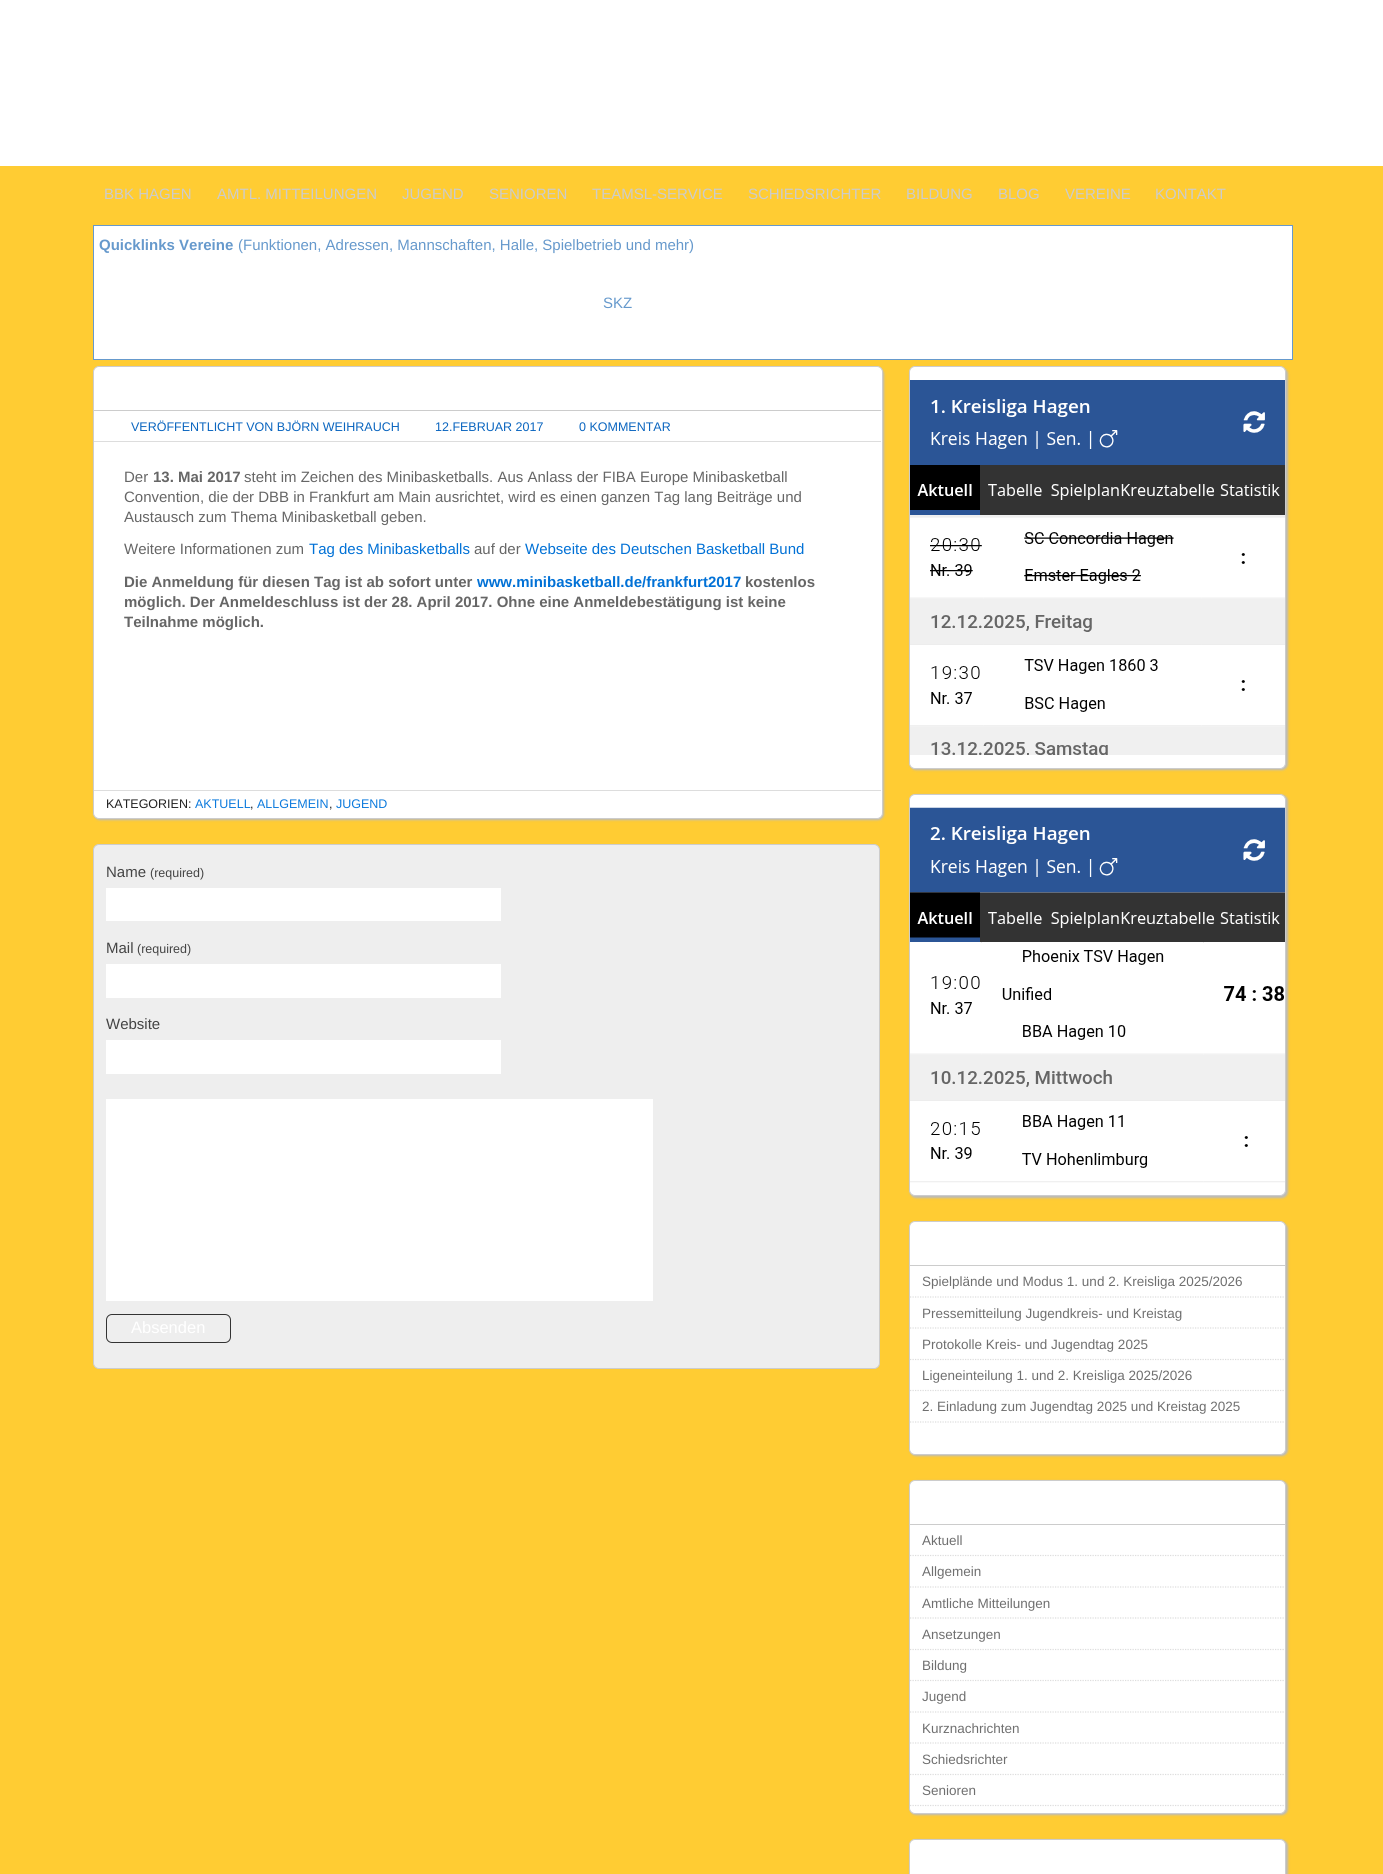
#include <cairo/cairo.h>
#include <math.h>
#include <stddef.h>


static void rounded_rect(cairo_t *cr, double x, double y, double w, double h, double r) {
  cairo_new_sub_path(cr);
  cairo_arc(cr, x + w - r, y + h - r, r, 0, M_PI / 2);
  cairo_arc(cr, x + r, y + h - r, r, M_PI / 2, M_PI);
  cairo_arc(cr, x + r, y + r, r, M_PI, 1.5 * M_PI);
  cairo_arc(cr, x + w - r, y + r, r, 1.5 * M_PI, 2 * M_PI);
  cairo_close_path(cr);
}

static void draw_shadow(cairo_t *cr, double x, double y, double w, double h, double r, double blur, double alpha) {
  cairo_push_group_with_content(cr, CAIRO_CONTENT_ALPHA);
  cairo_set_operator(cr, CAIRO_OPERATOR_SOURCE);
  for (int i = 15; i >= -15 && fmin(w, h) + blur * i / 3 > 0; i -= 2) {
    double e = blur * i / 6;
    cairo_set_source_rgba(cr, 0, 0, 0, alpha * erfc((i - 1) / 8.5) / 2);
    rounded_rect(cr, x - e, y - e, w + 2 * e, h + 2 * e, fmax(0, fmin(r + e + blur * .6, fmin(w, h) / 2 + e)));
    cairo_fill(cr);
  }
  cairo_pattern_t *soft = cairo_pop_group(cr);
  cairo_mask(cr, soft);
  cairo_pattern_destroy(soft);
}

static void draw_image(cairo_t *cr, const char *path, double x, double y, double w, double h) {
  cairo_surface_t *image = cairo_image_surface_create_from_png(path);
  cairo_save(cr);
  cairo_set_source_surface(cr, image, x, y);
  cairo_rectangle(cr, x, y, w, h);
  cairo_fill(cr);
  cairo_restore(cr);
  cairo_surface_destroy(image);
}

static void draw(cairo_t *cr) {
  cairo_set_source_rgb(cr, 1, 204 / 255.0, 51 / 255.0);
  cairo_paint(cr);
  cairo_set_source_rgb(cr, 1, 1, 1);
  cairo_rectangle(cr, 0, 0, 1383, 166);
  cairo_fill(cr);
  cairo_rectangle(cr, 93.5, 225.5, 1199, 134);
  cairo_fill_preserve(cr);
  cairo_set_source_rgb(cr, 102 / 255.0, 153 / 255.0, 204 / 255.0);
  cairo_set_line_width(cr, 1);
  cairo_stroke(cr);
  cairo_set_source_rgb(cr, 187 / 255.0, 187 / 255.0, 187 / 255.0);
  draw_shadow(cr, 94, 368, 790, 452, 6, 1, 1);
  cairo_set_source_rgb(cr, 1, 1, 1);
  rounded_rect(cr, 93.5, 366.5, 789, 452, 5.5);
  cairo_fill_preserve(cr);
  cairo_set_source_rgb(cr, 204 / 255.0, 204 / 255.0, 204 / 255.0);
  cairo_stroke(cr);
  cairo_rectangle(cr, 94, 410, 787, 1);
  cairo_fill(cr);
  cairo_set_source_rgb(cr, 221 / 255.0, 221 / 255.0, 221 / 255.0);
  cairo_rectangle(cr, 94, 441, 787, 1);
  cairo_fill(cr);
  cairo_rectangle(cr, 94, 790, 787, 1);
  cairo_fill(cr);
  cairo_set_source_rgb(cr, 238 / 255.0, 238 / 255.0, 238 / 255.0);
  rounded_rect(cr, 93.5, 844.5, 786, 524, 5.5);
  cairo_fill_preserve(cr);
  cairo_set_source_rgb(cr, 204 / 255.0, 204 / 255.0, 204 / 255.0);
  cairo_stroke(cr);
  cairo_set_source_rgb(cr, 1, 1, 1);
  cairo_rectangle(cr, 106, 888, 395, 33);
  cairo_fill(cr);
  cairo_rectangle(cr, 106, 964, 395, 34);
  cairo_fill(cr);
  cairo_rectangle(cr, 106, 1040, 395, 34);
  cairo_fill(cr);
  cairo_rectangle(cr, 106, 1099, 547, 202);
  cairo_fill(cr);
  rounded_rect(cr, 106.5, 1314.5, 124, 28, 5.5);
  cairo_set_source_rgb(cr, 51 / 255.0, 51 / 255.0, 51 / 255.0);
  cairo_stroke(cr);
  cairo_set_source_rgb(cr, 187 / 255.0, 187 / 255.0, 187 / 255.0);
  draw_shadow(cr, 910, 368, 378, 402, 6, 1, 1);
  cairo_set_source_rgb(cr, 1, 1, 1);
  rounded_rect(cr, 909.5, 366.5, 376, 402, 5.5);
  cairo_fill_preserve(cr);
  cairo_set_source_rgb(cr, 204 / 255.0, 204 / 255.0, 204 / 255.0);
  cairo_stroke(cr);
  draw_image(cr, "images/1.png", 910, 380, 375, 375);
  cairo_set_source_rgb(cr, 187 / 255.0, 187 / 255.0, 187 / 255.0);
  draw_shadow(cr, 910, 795, 378, 403, 6, 1, 1);
  cairo_set_source_rgb(cr, 1, 1, 1);
  rounded_rect(cr, 909.5, 794.5, 376, 401, 5.5);
  cairo_fill_preserve(cr);
  cairo_set_source_rgb(cr, 204 / 255.0, 204 / 255.0, 204 / 255.0);
  cairo_stroke(cr);
  draw_image(cr, "images/2.png", 910, 807, 375, 376);
  cairo_set_source_rgb(cr, 187 / 255.0, 187 / 255.0, 187 / 255.0);
  draw_shadow(cr, 910, 1223, 378, 233, 6, 1, 1);
  cairo_set_source_rgb(cr, 1, 1, 1);
  rounded_rect(cr, 909.5, 1221.5, 376, 233, 5.5);
  cairo_fill_preserve(cr);
  cairo_set_source_rgb(cr, 204 / 255.0, 204 / 255.0, 204 / 255.0);
  cairo_stroke(cr);
  cairo_rectangle(cr, 910, 1265, 375, 1);
  cairo_fill(cr);
  cairo_new_path(cr);
  cairo_move_to(cr, 910, 1297);
  cairo_line_to(cr, 1285, 1297);
  cairo_set_source_rgb(cr, 221 / 255.0, 221 / 255.0, 221 / 255.0);
  cairo_set_line_width(cr, 1.2);
  cairo_set_dash(cr, (double[]){1.25, 1.25}, 2, 0);
  cairo_stroke(cr);
  cairo_new_path(cr);
  cairo_move_to(cr, 910, 1328);
  cairo_line_to(cr, 1285, 1328);
  cairo_stroke(cr);
  cairo_new_path(cr);
  cairo_move_to(cr, 910, 1359.5);
  cairo_line_to(cr, 1285, 1359.5);
  cairo_stroke(cr);
  cairo_new_path(cr);
  cairo_move_to(cr, 910, 1390.5);
  cairo_line_to(cr, 1285, 1390.5);
  cairo_stroke(cr);
  cairo_new_path(cr);
  cairo_move_to(cr, 910, 1422);
  cairo_line_to(cr, 1285, 1422);
  cairo_stroke(cr);
  cairo_set_source_rgb(cr, 187 / 255.0, 187 / 255.0, 187 / 255.0);
  draw_shadow(cr, 910, 1481, 378, 334, 6, 1, 1);
  cairo_set_source_rgb(cr, 1, 1, 1);
  rounded_rect(cr, 909.5, 1480.5, 376, 333, 5.5);
  cairo_fill_preserve(cr);
  cairo_set_source_rgb(cr, 204 / 255.0, 204 / 255.0, 204 / 255.0);
  cairo_set_line_width(cr, 1);
  cairo_set_dash(cr, NULL, 0, 0);
  cairo_stroke(cr);
  cairo_rectangle(cr, 910, 1524, 375, 1);
  cairo_fill(cr);
  cairo_new_path(cr);
  cairo_move_to(cr, 910, 1555.5);
  cairo_line_to(cr, 1285, 1555.5);
  cairo_set_source_rgb(cr, 221 / 255.0, 221 / 255.0, 221 / 255.0);
  cairo_set_line_width(cr, 1.2);
  cairo_set_dash(cr, (double[]){1.25, 1.25}, 2, 0);
  cairo_stroke(cr);
  cairo_new_path(cr);
  cairo_move_to(cr, 910, 1587);
  cairo_line_to(cr, 1285, 1587);
  cairo_stroke(cr);
  cairo_new_path(cr);
  cairo_move_to(cr, 910, 1618);
  cairo_line_to(cr, 1285, 1618);
  cairo_stroke(cr);
  cairo_new_path(cr);
  cairo_move_to(cr, 910, 1649.5);
  cairo_line_to(cr, 1285, 1649.5);
  cairo_stroke(cr);
  cairo_new_path(cr);
  cairo_move_to(cr, 910, 1680.5);
  cairo_line_to(cr, 1285, 1680.5);
  cairo_stroke(cr);
  cairo_new_path(cr);
  cairo_move_to(cr, 910, 1712);
  cairo_line_to(cr, 1285, 1712);
  cairo_stroke(cr);
  cairo_new_path(cr);
  cairo_move_to(cr, 910, 1743);
  cairo_line_to(cr, 1285, 1743);
  cairo_stroke(cr);
  cairo_new_path(cr);
  cairo_move_to(cr, 910, 1774.5);
  cairo_line_to(cr, 1285, 1774.5);
  cairo_stroke(cr);
  cairo_new_path(cr);
  cairo_move_to(cr, 910, 1805.5);
  cairo_line_to(cr, 1285, 1805.5);
  cairo_stroke(cr);
  cairo_set_source_rgb(cr, 187 / 255.0, 187 / 255.0, 187 / 255.0);
  draw_shadow(cr, 910, 1840, 378, 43, 6, 1, 1);
  cairo_set_source_rgb(cr, 1, 1, 1);
  rounded_rect(cr, 909.5, 1839.5, 376, 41, 5.5);
  cairo_fill_preserve(cr);
  cairo_set_source_rgb(cr, 204 / 255.0, 204 / 255.0, 204 / 255.0);
  cairo_set_line_width(cr, 1);
  cairo_set_dash(cr, NULL, 0, 0);
  cairo_stroke(cr);
  cairo_select_font_face(cr, "Liberation Sans", CAIRO_FONT_SLANT_NORMAL, CAIRO_FONT_WEIGHT_NORMAL);
  cairo_set_font_size(cr, 15);
  cairo_move_to(cr, 104, 199);
  cairo_show_text(cr, "BBK HAGEN");
  cairo_move_to(cr, 217, 199);
  cairo_show_text(cr, "AMTL. MITTEILUNGEN");
  cairo_move_to(cr, 402, 199);
  cairo_show_text(cr, "JUGEND");
  cairo_move_to(cr, 489, 199);
  cairo_show_text(cr, "SENIOREN");
  cairo_move_to(cr, 592, 199);
  cairo_show_text(cr, "TEAMSL-SERVICE");
  cairo_move_to(cr, 748, 199);
  cairo_show_text(cr, "SCHIEDSRICHTER");
  cairo_move_to(cr, 906, 199);
  cairo_show_text(cr, "BILDUNG");
  cairo_move_to(cr, 998, 199);
  cairo_show_text(cr, "BLOG");
  cairo_move_to(cr, 1065, 199);
  cairo_show_text(cr, "VEREINE");
  cairo_move_to(cr, 1155, 199);
  cairo_show_text(cr, "KONTAKT");
  cairo_select_font_face(cr, "Liberation Sans", CAIRO_FONT_SLANT_NORMAL, CAIRO_FONT_WEIGHT_BOLD);
  cairo_set_source_rgb(cr, 102 / 255.0, 153 / 255.0, 204 / 255.0);
  cairo_move_to(cr, 99, 250);
  cairo_show_text(cr, "Quicklinks Vereine");
  cairo_select_font_face(cr, "Liberation Sans", CAIRO_FONT_SLANT_NORMAL, CAIRO_FONT_WEIGHT_NORMAL);
  cairo_move_to(cr, 238, 250);
  cairo_show_text(cr, "(Funktionen, Adressen, Mannschaften, Halle, Spielbetrieb und mehr)");
  cairo_move_to(cr, 603, 308);
  cairo_show_text(cr, "SKZ");
  cairo_set_font_size(cr, 12.5);
  cairo_set_source_rgb(cr, 10 / 255.0, 101 / 255.0, 191 / 255.0);
  cairo_move_to(cr, 131, 431);
  cairo_show_text(cr, "VERÖFFENTLICHT VON BJÖRN WEIHRAUCH");
  cairo_move_to(cr, 435, 431);
  cairo_show_text(cr, "12.FEBRUAR 2017");
  cairo_move_to(cr, 579, 431);
  cairo_show_text(cr, "0 KOMMENTAR");
  cairo_set_font_size(cr, 15);
  cairo_set_source_rgb(cr, 102 / 255.0, 102 / 255.0, 102 / 255.0);
  cairo_move_to(cr, 124, 482);
  cairo_show_text(cr, "Der");
  cairo_select_font_face(cr, "Liberation Sans", CAIRO_FONT_SLANT_NORMAL, CAIRO_FONT_WEIGHT_BOLD);
  cairo_move_to(cr, 153, 482);
  cairo_show_text(cr, "13. Mai 2017");
  cairo_select_font_face(cr, "Liberation Sans", CAIRO_FONT_SLANT_NORMAL, CAIRO_FONT_WEIGHT_NORMAL);
  cairo_move_to(cr, 244, 482);
  cairo_show_text(cr, "steht im Zeichen des Minibasketballs. Aus Anlass der FIBA Europe Minibasketball");
  cairo_move_to(cr, 124, 502);
  cairo_show_text(cr, "Convention, die der DBB in Frankfurt am Main ausrichtet, wird es einen ganzen Tag lang Beiträge und");
  cairo_move_to(cr, 124, 522);
  cairo_show_text(cr, "Austausch zum Thema Minibasketball geben.");
  cairo_move_to(cr, 124, 554);
  cairo_show_text(cr, "Weitere Informationen zum");
  cairo_set_source_rgb(cr, 1 / 255.0, 113 / 255.0, 214 / 255.0);
  cairo_move_to(cr, 309, 554);
  cairo_show_text(cr, "Tag des Minibasketballs");
  cairo_set_source_rgb(cr, 102 / 255.0, 102 / 255.0, 102 / 255.0);
  cairo_move_to(cr, 474, 554);
  cairo_show_text(cr, "auf der");
  cairo_set_source_rgb(cr, 1 / 255.0, 113 / 255.0, 214 / 255.0);
  cairo_move_to(cr, 525, 554);
  cairo_show_text(cr, "Webseite des Deutschen Basketball Bund");
  cairo_select_font_face(cr, "Liberation Sans", CAIRO_FONT_SLANT_NORMAL, CAIRO_FONT_WEIGHT_BOLD);
  cairo_set_source_rgb(cr, 102 / 255.0, 102 / 255.0, 102 / 255.0);
  cairo_move_to(cr, 124, 587);
  cairo_show_text(cr, "Die Anmeldung für diesen Tag ist ab sofort unter");
  cairo_set_source_rgb(cr, 1 / 255.0, 113 / 255.0, 214 / 255.0);
  cairo_move_to(cr, 477, 587);
  cairo_show_text(cr, "www.minibasketball.de/frankfurt2017");
  cairo_set_source_rgb(cr, 102 / 255.0, 102 / 255.0, 102 / 255.0);
  cairo_move_to(cr, 745, 587);
  cairo_show_text(cr, "kostenlos");
  cairo_move_to(cr, 124, 607);
  cairo_show_text(cr, "möglich. Der Anmeldeschluss ist der 28. April 2017. Ohne eine Anmeldebestätigung ist keine");
  cairo_move_to(cr, 124, 627);
  cairo_show_text(cr, "Teilnahme möglich.");
  cairo_select_font_face(cr, "Liberation Sans", CAIRO_FONT_SLANT_NORMAL, CAIRO_FONT_WEIGHT_NORMAL);
  cairo_set_font_size(cr, 12.5);
  cairo_set_source_rgb(cr, 34 / 255.0, 34 / 255.0, 34 / 255.0);
  cairo_move_to(cr, 106, 808);
  cairo_show_text(cr, "KATEGORIEN:");
  cairo_set_source_rgb(cr, 12 / 255.0, 122 / 255.0, 221 / 255.0);
  cairo_move_to(cr, 195, 808);
  cairo_show_text(cr, "AKTUELL");
  cairo_set_source_rgb(cr, 34 / 255.0, 34 / 255.0, 34 / 255.0);
  cairo_move_to(cr, 250, 808);
  cairo_show_text(cr, ",");
  cairo_set_source_rgb(cr, 12 / 255.0, 122 / 255.0, 221 / 255.0);
  cairo_move_to(cr, 257, 808);
  cairo_show_text(cr, "ALLGEMEIN");
  cairo_set_source_rgb(cr, 34 / 255.0, 34 / 255.0, 34 / 255.0);
  cairo_move_to(cr, 329, 808);
  cairo_show_text(cr, ",");
  cairo_set_source_rgb(cr, 12 / 255.0, 122 / 255.0, 221 / 255.0);
  cairo_move_to(cr, 336, 808);
  cairo_show_text(cr, "JUGEND");
  cairo_set_font_size(cr, 15);
  cairo_set_source_rgb(cr, 68 / 255.0, 68 / 255.0, 68 / 255.0);
  cairo_move_to(cr, 106, 877);
  cairo_show_text(cr, "Name");
  cairo_set_font_size(cr, 12.5);
  cairo_move_to(cr, 150, 877);
  cairo_show_text(cr, "(required)");
  cairo_set_font_size(cr, 15);
  cairo_move_to(cr, 106, 953);
  cairo_show_text(cr, "Mail");
  cairo_set_font_size(cr, 12.5);
  cairo_move_to(cr, 137, 953);
  cairo_show_text(cr, "(required)");
  cairo_set_font_size(cr, 15);
  cairo_move_to(cr, 106, 1029);
  cairo_show_text(cr, "Website");
  cairo_set_font_size(cr, 16.5);
  cairo_set_source_rgb(cr, 1, 1, 1);
  cairo_move_to(cr, 131, 1333);
  cairo_show_text(cr, "Absenden");
  cairo_set_font_size(cr, 13.5);
  cairo_set_source_rgb(cr, 111 / 255.0, 111 / 255.0, 111 / 255.0);
  cairo_move_to(cr, 922, 1286);
  cairo_show_text(cr, "Spielplände und Modus 1. und 2. Kreisliga 2025/2026");
  cairo_move_to(cr, 922, 1318);
  cairo_show_text(cr, "Pressemitteilung Jugendkreis- und Kreistag");
  cairo_move_to(cr, 922, 1349);
  cairo_show_text(cr, "Protokolle Kreis- und Jugendtag 2025");
  cairo_move_to(cr, 922, 1380);
  cairo_show_text(cr, "Ligeneinteilung 1. und 2. Kreisliga 2025/2026");
  cairo_move_to(cr, 922, 1411);
  cairo_show_text(cr, "2. Einladung zum Jugendtag 2025 und Kreistag 2025");
  cairo_move_to(cr, 922, 1545);
  cairo_show_text(cr, "Aktuell");
  cairo_move_to(cr, 922, 1576);
  cairo_show_text(cr, "Allgemein");
  cairo_move_to(cr, 922, 1608);
  cairo_show_text(cr, "Amtliche Mitteilungen");
  cairo_move_to(cr, 922, 1639);
  cairo_show_text(cr, "Ansetzungen");
  cairo_move_to(cr, 922, 1670);
  cairo_show_text(cr, "Bildung");
  cairo_move_to(cr, 922, 1701);
  cairo_show_text(cr, "Jugend");
  cairo_move_to(cr, 922, 1733);
  cairo_show_text(cr, "Kurznachrichten");
  cairo_move_to(cr, 922, 1764);
  cairo_show_text(cr, "Schiedsrichter");
  cairo_move_to(cr, 922, 1795);
  cairo_show_text(cr, "Senioren");
}

int main(void) {
  cairo_surface_t *surface = cairo_image_surface_create(CAIRO_FORMAT_RGB24, 1383, 1874);
  cairo_t *cr = cairo_create(surface);
  cairo_font_options_t *options = cairo_font_options_create();
  cairo_font_options_set_hint_metrics(options, CAIRO_HINT_METRICS_OFF);
  cairo_font_options_set_hint_style(options, CAIRO_HINT_STYLE_NONE);
  cairo_set_font_options(cr, options);
  cairo_set_miter_limit(cr, 4);
  draw(cr);
  cairo_surface_write_to_png(surface, "out.png");
  cairo_font_options_destroy(options);
  cairo_destroy(cr);
  cairo_surface_destroy(surface);
  return 0;
}
